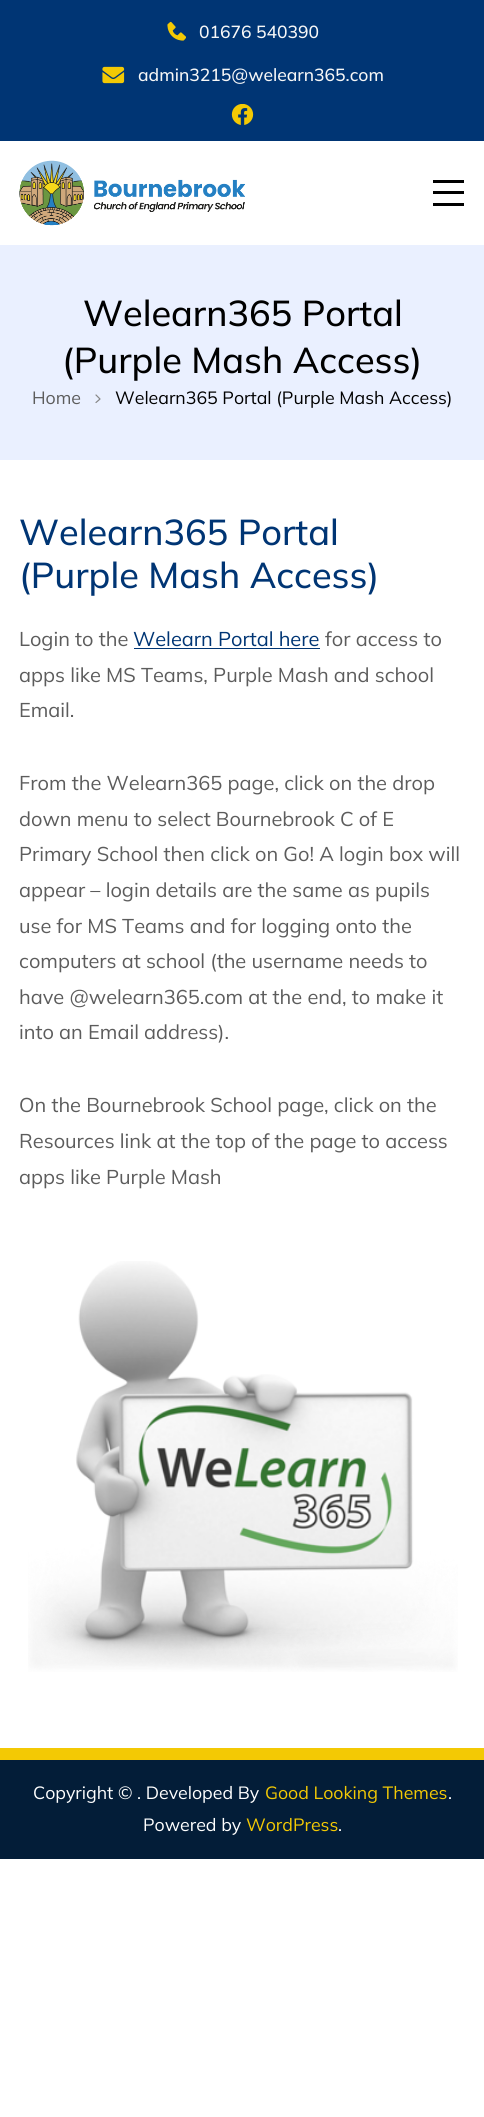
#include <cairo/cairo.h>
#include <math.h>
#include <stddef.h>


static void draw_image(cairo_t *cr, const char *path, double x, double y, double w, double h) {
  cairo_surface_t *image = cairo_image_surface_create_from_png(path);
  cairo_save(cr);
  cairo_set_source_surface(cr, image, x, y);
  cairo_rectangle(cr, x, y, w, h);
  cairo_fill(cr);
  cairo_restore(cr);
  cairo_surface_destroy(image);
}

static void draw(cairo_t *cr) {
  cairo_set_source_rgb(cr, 1, 1, 1);
  cairo_paint(cr);
  cairo_set_source_rgb(cr, 0, 53 / 255.0, 116 / 255.0);
  cairo_rectangle(cr, 0, 0, 484, 141);
  cairo_fill(cr);
  draw_image(cr, "images/1.png", 167, 21, 19, 20);
  draw_image(cr, "images/2.png", 102, 66, 23, 18);
  draw_image(cr, "images/3.png", 231, 104, 23, 21);
  draw_image(cr, "images/4.png", 19, 160, 226, 66);
  cairo_set_source_rgb(cr, 0, 0, 0);
  cairo_rectangle(cr, 433, 180, 31, 3);
  cairo_fill(cr);
  cairo_rectangle(cr, 433, 191, 31, 3);
  cairo_fill(cr);
  cairo_rectangle(cr, 433, 203, 31, 3);
  cairo_fill(cr);
  cairo_set_source_rgb(cr, 234 / 255.0, 240 / 255.0, 1);
  cairo_rectangle(cr, 0, 245, 484, 215);
  cairo_fill(cr);
  cairo_new_path(cr);
  cairo_move_to(cr, 96, 395);
  cairo_line_to(cr, 100, 399);
  cairo_line_to(cr, 96, 402.5);
  cairo_set_source_rgb(cr, 134 / 255.0, 134 / 255.0, 134 / 255.0);
  cairo_set_line_width(cr, 1.2);
  cairo_set_line_cap(cr, CAIRO_LINE_CAP_ROUND);
  cairo_set_line_join(cr, CAIRO_LINE_JOIN_ROUND);
  cairo_stroke(cr);
  cairo_set_source_rgb(cr, 0, 53 / 255.0, 116 / 255.0);
  cairo_rectangle(cr, 134, 648, 186, 1);
  cairo_fill(cr);
  draw_image(cr, "images/5.png", 28, 1261, 430, 411);
  cairo_set_source_rgb(cr, 243 / 255.0, 201 / 255.0, 4 / 255.0);
  cairo_rectangle(cr, 0, 1748, 484, 12);
  cairo_fill(cr);
  cairo_set_source_rgb(cr, 3 / 255.0, 29 / 255.0, 56 / 255.0);
  cairo_rectangle(cr, 0, 1760, 484, 99);
  cairo_fill(cr);
  cairo_select_font_face(cr, "Mulish Medium", CAIRO_FONT_SLANT_NORMAL, CAIRO_FONT_WEIGHT_NORMAL);
  cairo_set_font_size(cr, 17.5);
  cairo_set_source_rgb(cr, 247 / 255.0, 247 / 255.0, 247 / 255.0);
  cairo_move_to(cr, 199, 38);
  cairo_show_text(cr, "01676 540390");
  cairo_move_to(cr, 138, 81);
  cairo_show_text(cr, "admin3215@welearn365.com");
  cairo_set_font_size(cr, 36);
  cairo_set_source_rgb(cr, 0, 0, 0);
  cairo_move_to(cr, 83, 326);
  cairo_show_text(cr, "Welearn365 Portal");
  cairo_move_to(cr, 62, 373);
  cairo_show_text(cr, "(Purple Mash Access)");
  cairo_select_font_face(cr, "Mulish", CAIRO_FONT_SLANT_NORMAL, CAIRO_FONT_WEIGHT_NORMAL);
  cairo_set_font_size(cr, 17.75);
  cairo_set_source_rgb(cr, 92 / 255.0, 92 / 255.0, 92 / 255.0);
  cairo_move_to(cr, 32, 404);
  cairo_show_text(cr, "Home");
  cairo_set_source_rgb(cr, 0, 0, 0);
  cairo_move_to(cr, 115, 404);
  cairo_show_text(cr, "Welearn365 Portal (Purple Mash Access)");
  cairo_select_font_face(cr, "Mulish Medium", CAIRO_FONT_SLANT_NORMAL, CAIRO_FONT_WEIGHT_NORMAL);
  cairo_set_font_size(cr, 36);
  cairo_set_source_rgb(cr, 0, 53 / 255.0, 116 / 255.0);
  cairo_move_to(cr, 19, 545);
  cairo_show_text(cr, "Welearn365 Portal");
  cairo_move_to(cr, 19, 588);
  cairo_show_text(cr, "(Purple Mash Access)");
  cairo_select_font_face(cr, "Mulish", CAIRO_FONT_SLANT_NORMAL, CAIRO_FONT_WEIGHT_NORMAL);
  cairo_set_font_size(cr, 20);
  cairo_set_source_rgb(cr, 92 / 255.0, 92 / 255.0, 92 / 255.0);
  cairo_move_to(cr, 19, 646);
  cairo_show_text(cr, "Login to the");
  cairo_set_source_rgb(cr, 0, 53 / 255.0, 116 / 255.0);
  cairo_move_to(cr, 133, 646);
  cairo_show_text(cr, "Welearn Portal here");
  cairo_set_source_rgb(cr, 92 / 255.0, 92 / 255.0, 92 / 255.0);
  cairo_move_to(cr, 325, 646);
  cairo_show_text(cr, "for access to");
  cairo_move_to(cr, 19, 682);
  cairo_show_text(cr, "apps like MS Teams, Purple Mash and school");
  cairo_move_to(cr, 19, 717);
  cairo_show_text(cr, "Email.");
  cairo_move_to(cr, 19, 790);
  cairo_show_text(cr, "From the Welearn365 page, click on the drop");
  cairo_move_to(cr, 19, 826);
  cairo_show_text(cr, "down menu to select Bournebrook C of E");
  cairo_move_to(cr, 19, 861);
  cairo_show_text(cr, "Primary School then click on Go! A login box will");
  cairo_move_to(cr, 19, 897);
  cairo_show_text(cr, "appear – login details are the same as pupils");
  cairo_move_to(cr, 19, 933);
  cairo_show_text(cr, "use for MS Teams and for logging onto the");
  cairo_move_to(cr, 19, 968);
  cairo_show_text(cr, "computers at school (the username needs to");
  cairo_move_to(cr, 19, 1004);
  cairo_show_text(cr, "have @welearn365.com at the end, to make it");
  cairo_move_to(cr, 19, 1039);
  cairo_show_text(cr, "into an Email address).");
  cairo_move_to(cr, 19, 1112);
  cairo_show_text(cr, "On the Bournebrook School page, click on the");
  cairo_move_to(cr, 19, 1148);
  cairo_show_text(cr, "Resources link at the top of the page to access");
  cairo_move_to(cr, 19, 1184);
  cairo_show_text(cr, "apps like Purple Mash");
  cairo_set_font_size(cr, 17.75);
  cairo_set_source_rgb(cr, 1, 1, 1);
  cairo_move_to(cr, 33, 1799);
  cairo_show_text(cr, "Copyright © . Developed By");
  cairo_set_source_rgb(cr, 243 / 255.0, 201 / 255.0, 4 / 255.0);
  cairo_move_to(cr, 265, 1799);
  cairo_show_text(cr, "Good Looking Themes");
  cairo_set_source_rgb(cr, 1, 1, 1);
  cairo_move_to(cr, 448, 1799);
  cairo_show_text(cr, ".");
  cairo_move_to(cr, 143, 1831);
  cairo_show_text(cr, "Powered by");
  cairo_set_source_rgb(cr, 243 / 255.0, 201 / 255.0, 4 / 255.0);
  cairo_move_to(cr, 246, 1831);
  cairo_show_text(cr, "WordPress");
  cairo_set_source_rgb(cr, 1, 1, 1);
  cairo_move_to(cr, 338, 1831);
  cairo_show_text(cr, ".");
}

int main(void) {
  cairo_surface_t *surface = cairo_image_surface_create(CAIRO_FORMAT_RGB24, 484, 2117);
  cairo_t *cr = cairo_create(surface);
  cairo_font_options_t *options = cairo_font_options_create();
  cairo_font_options_set_hint_metrics(options, CAIRO_HINT_METRICS_OFF);
  cairo_font_options_set_hint_style(options, CAIRO_HINT_STYLE_NONE);
  cairo_set_font_options(cr, options);
  cairo_set_miter_limit(cr, 4);
  draw(cr);
  cairo_surface_write_to_png(surface, "out.png");
  cairo_font_options_destroy(options);
  cairo_destroy(cr);
  cairo_surface_destroy(surface);
  return 0;
}
